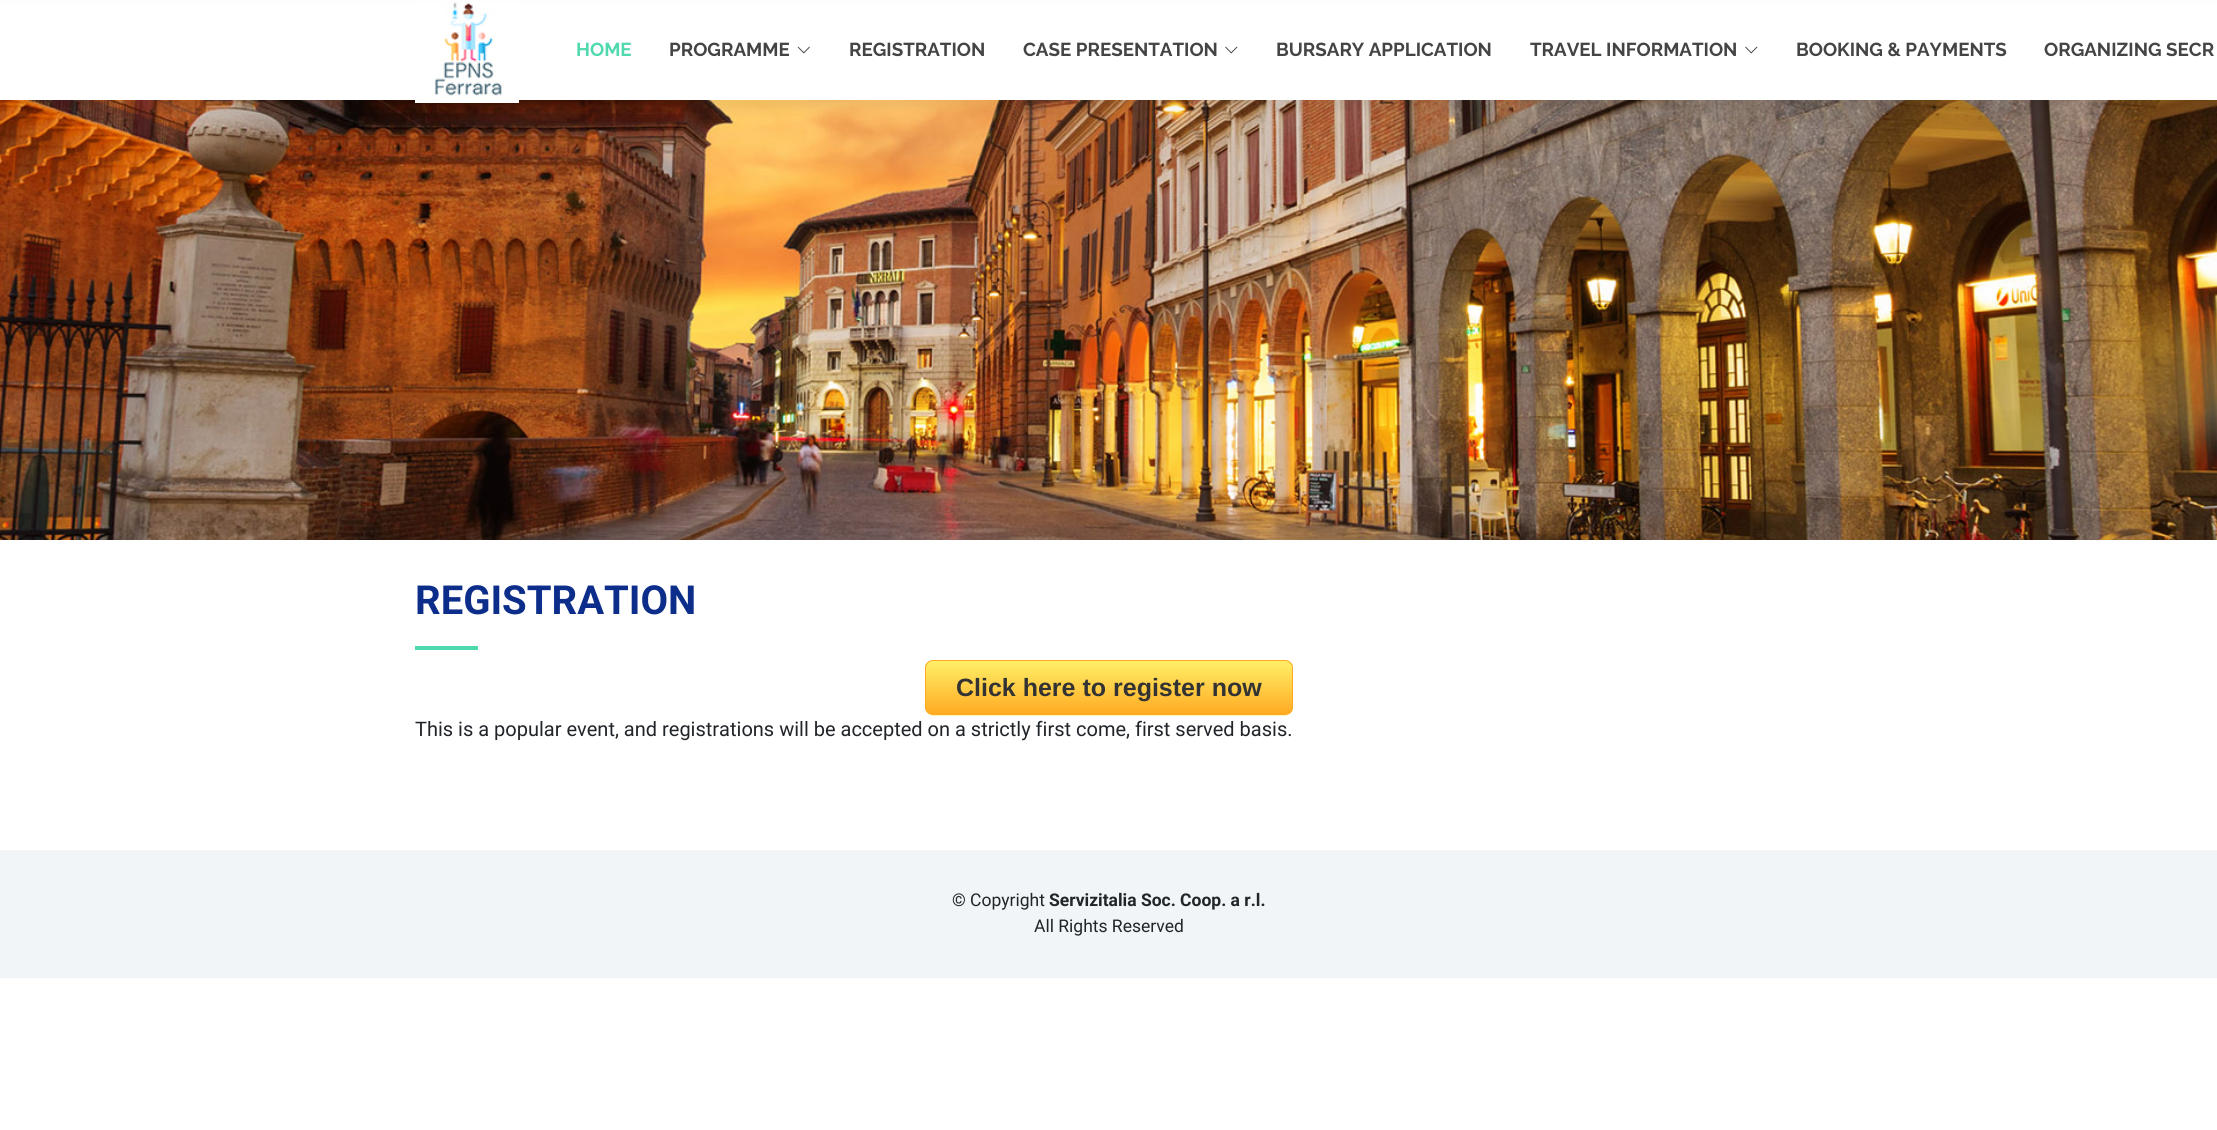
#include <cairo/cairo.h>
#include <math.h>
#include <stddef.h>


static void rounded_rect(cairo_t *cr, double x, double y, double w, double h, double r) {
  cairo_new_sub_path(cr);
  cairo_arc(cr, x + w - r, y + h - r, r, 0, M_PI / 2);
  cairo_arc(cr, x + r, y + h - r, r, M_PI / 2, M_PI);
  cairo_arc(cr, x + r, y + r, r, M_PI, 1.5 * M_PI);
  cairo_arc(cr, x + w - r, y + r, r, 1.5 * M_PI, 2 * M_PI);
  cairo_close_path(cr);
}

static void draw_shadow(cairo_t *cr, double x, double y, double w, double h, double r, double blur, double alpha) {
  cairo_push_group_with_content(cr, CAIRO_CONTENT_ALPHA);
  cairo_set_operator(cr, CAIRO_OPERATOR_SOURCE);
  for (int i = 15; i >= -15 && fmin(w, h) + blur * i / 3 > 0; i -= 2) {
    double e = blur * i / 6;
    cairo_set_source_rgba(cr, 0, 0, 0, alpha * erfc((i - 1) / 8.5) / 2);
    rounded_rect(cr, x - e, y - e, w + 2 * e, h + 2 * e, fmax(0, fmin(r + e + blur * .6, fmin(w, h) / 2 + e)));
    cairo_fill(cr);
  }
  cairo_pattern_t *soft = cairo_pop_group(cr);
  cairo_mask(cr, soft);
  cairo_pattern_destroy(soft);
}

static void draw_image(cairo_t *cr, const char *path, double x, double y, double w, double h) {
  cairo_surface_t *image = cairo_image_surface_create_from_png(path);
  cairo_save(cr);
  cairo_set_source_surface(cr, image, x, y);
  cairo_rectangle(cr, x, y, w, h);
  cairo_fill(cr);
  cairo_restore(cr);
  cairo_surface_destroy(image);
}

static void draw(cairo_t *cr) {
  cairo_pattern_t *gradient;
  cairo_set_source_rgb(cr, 1, 1, 1);
  cairo_paint(cr);
  draw_image(cr, "images/4.png", 0, 100, 2217, 440);
  cairo_set_source_rgb(cr, 0, 0, 0);
  draw_shadow(cr, 0, 8, 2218, 100, 0, 5.5, 0.06);
  cairo_set_source_rgb(cr, 1, 1, 1);
  cairo_rectangle(cr, 0, 3, 2217, 97);
  cairo_fill(cr);
  draw_image(cr, "images/1.png", 415, 2, 104, 101);
  draw_image(cr, "images/2.png", 797, 46, 13, 8);
  draw_image(cr, "images/3.png", 1225, 46, 13, 8);
  draw_image(cr, "images/3.png", 1745, 46, 13, 8);
  cairo_set_source_rgb(cr, 80 / 255.0, 216 / 255.0, 175 / 255.0);
  cairo_rectangle(cr, 415, 646, 63, 4);
  cairo_fill(cr);
  cairo_set_source_rgb(cr, 1, 246 / 255.0, 175 / 255.0);
  cairo_new_path(cr);
  cairo_move_to(cr, 925, 708);
  cairo_curve_to(cr, 925, 712, 929, 716, 933, 716);
  cairo_line_to(cr, 1285, 716);
  cairo_curve_to(cr, 1289, 716, 1293, 712, 1293, 708);
  cairo_line_to(cr, 1293, 669);
  cairo_line_to(cr, 1292, 666);
  cairo_line_to(cr, 1292, 708);
  cairo_curve_to(cr, 1292, 712, 1289, 715, 1285, 715);
  cairo_line_to(cr, 932, 715);
  cairo_curve_to(cr, 928, 715, 925, 712, 925, 708);
  cairo_close_path(cr);
  cairo_fill(cr);
  cairo_save(cr);
  rounded_rect(cr, 925, 660, 368, 55, 8);
  cairo_clip(cr);
  gradient = cairo_pattern_create_linear(1109, 661, 1109, 714);
  cairo_pattern_add_color_stop_rgba(gradient, 0.05, 1, 236 / 255.0, 100 / 255.0, 1);
  cairo_pattern_add_color_stop_rgba(gradient, 1, 1, 171 / 255.0, 35 / 255.0, 1);
  cairo_set_source(cr, gradient);
  cairo_pattern_destroy(gradient);
  cairo_rectangle(cr, 925, 661, 368, 53);
  cairo_fill(cr);
  cairo_restore(cr);
  rounded_rect(cr, 925.5, 660.5, 367, 54, 7.5);
  cairo_set_source_rgb(cr, 1, 170 / 255.0, 34 / 255.0);
  cairo_set_line_width(cr, 1);
  cairo_stroke(cr);
  cairo_set_source_rgb(cr, 242 / 255.0, 245 / 255.0, 248 / 255.0);
  cairo_rectangle(cr, 0, 850, 2217, 128);
  cairo_fill(cr);
  cairo_select_font_face(cr, "Raleway", CAIRO_FONT_SLANT_NORMAL, CAIRO_FONT_WEIGHT_BOLD);
  cairo_set_font_size(cr, 18.75);
  cairo_set_source_rgb(cr, 80 / 255.0, 216 / 255.0, 175 / 255.0);
  cairo_move_to(cr, 576, 56);
  cairo_show_text(cr, "HOME");
  cairo_set_source_rgb(cr, 68 / 255.0, 68 / 255.0, 68 / 255.0);
  cairo_move_to(cr, 669, 56);
  cairo_show_text(cr, "PROGRAMME");
  cairo_move_to(cr, 849, 56);
  cairo_show_text(cr, "REGISTRATION");
  cairo_move_to(cr, 1023, 56);
  cairo_show_text(cr, "CASE PRESENTATION");
  cairo_move_to(cr, 1276, 56);
  cairo_show_text(cr, "BURSARY APPLICATION");
  cairo_move_to(cr, 1530, 56);
  cairo_show_text(cr, "TRAVEL INFORMATION");
  cairo_move_to(cr, 1796, 56);
  cairo_show_text(cr, "BOOKING & PAYMENTS");
  cairo_move_to(cr, 2044, 56);
  cairo_show_text(cr, "ORGANIZING SECR");
  cairo_select_font_face(cr, "Roboto", CAIRO_FONT_SLANT_NORMAL, CAIRO_FONT_WEIGHT_BOLD);
  cairo_set_font_size(cr, 40);
  cairo_set_source_rgb(cr, 12 / 255.0, 46 / 255.0, 138 / 255.0);
  cairo_move_to(cr, 415, 614);
  cairo_show_text(cr, "REGISTRATION");
  cairo_select_font_face(cr, "Liberation Sans", CAIRO_FONT_SLANT_NORMAL, CAIRO_FONT_WEIGHT_BOLD);
  cairo_set_font_size(cr, 25);
  cairo_set_source_rgb(cr, 51 / 255.0, 51 / 255.0, 51 / 255.0);
  cairo_move_to(cr, 956, 696);
  cairo_show_text(cr, "Click here to register now");
  cairo_select_font_face(cr, "Roboto", CAIRO_FONT_SLANT_NORMAL, CAIRO_FONT_WEIGHT_NORMAL);
  cairo_set_font_size(cr, 20);
  cairo_set_source_rgb(cr, 33 / 255.0, 37 / 255.0, 41 / 255.0);
  cairo_move_to(cr, 415, 736);
  cairo_show_text(cr, "This is a popular event, and registrations will be accepted on a strictly first come, first served basis.");
  cairo_set_font_size(cr, 17.5);
  cairo_move_to(cr, 952, 906);
  cairo_show_text(cr, "© Copyright");
  cairo_select_font_face(cr, "Roboto", CAIRO_FONT_SLANT_NORMAL, CAIRO_FONT_WEIGHT_BOLD);
  cairo_move_to(cr, 1049, 906);
  cairo_show_text(cr, "Servizitalia Soc. Coop. a r.l.");
  cairo_select_font_face(cr, "Roboto", CAIRO_FONT_SLANT_NORMAL, CAIRO_FONT_WEIGHT_NORMAL);
  cairo_move_to(cr, 1034, 932);
  cairo_show_text(cr, "All Rights Reserved");
}

int main(void) {
  cairo_surface_t *surface = cairo_image_surface_create(CAIRO_FORMAT_RGB24, 2217, 1130);
  cairo_t *cr = cairo_create(surface);
  cairo_font_options_t *options = cairo_font_options_create();
  cairo_font_options_set_hint_metrics(options, CAIRO_HINT_METRICS_OFF);
  cairo_font_options_set_hint_style(options, CAIRO_HINT_STYLE_NONE);
  cairo_set_font_options(cr, options);
  cairo_set_miter_limit(cr, 4);
  draw(cr);
  cairo_surface_write_to_png(surface, "out.png");
  cairo_font_options_destroy(options);
  cairo_destroy(cr);
  cairo_surface_destroy(surface);
  return 0;
}
